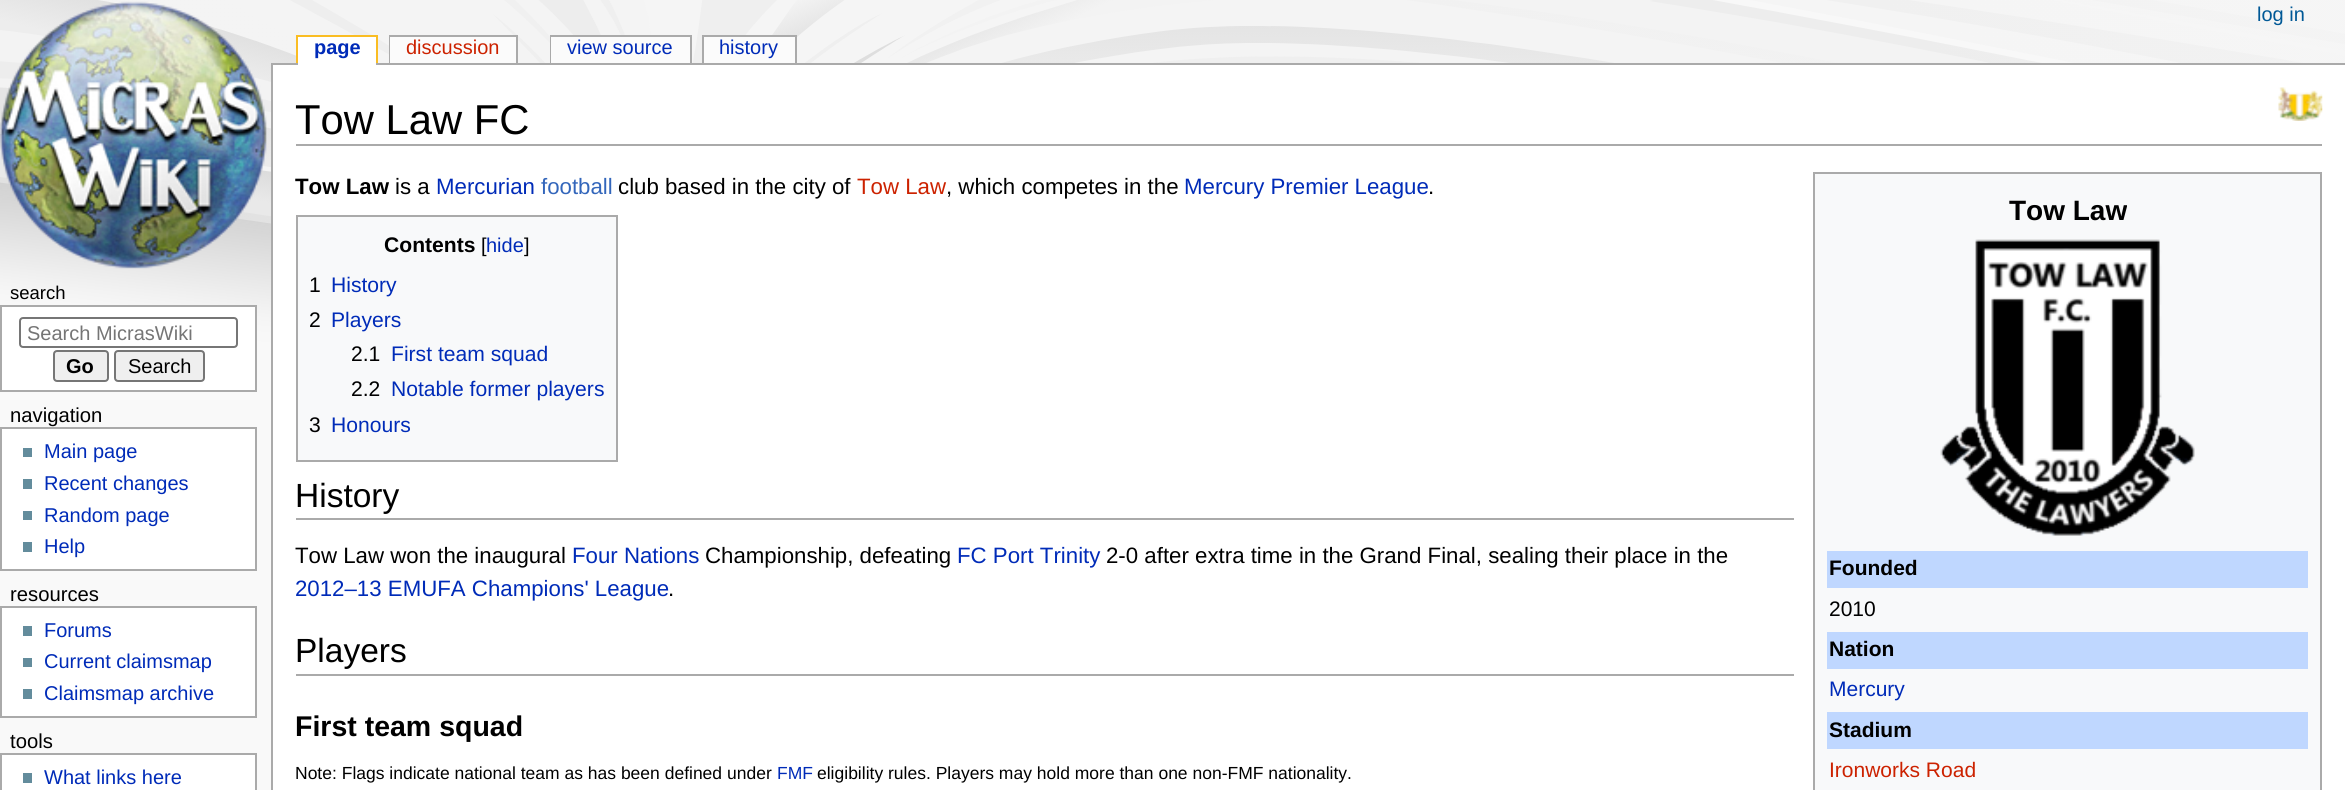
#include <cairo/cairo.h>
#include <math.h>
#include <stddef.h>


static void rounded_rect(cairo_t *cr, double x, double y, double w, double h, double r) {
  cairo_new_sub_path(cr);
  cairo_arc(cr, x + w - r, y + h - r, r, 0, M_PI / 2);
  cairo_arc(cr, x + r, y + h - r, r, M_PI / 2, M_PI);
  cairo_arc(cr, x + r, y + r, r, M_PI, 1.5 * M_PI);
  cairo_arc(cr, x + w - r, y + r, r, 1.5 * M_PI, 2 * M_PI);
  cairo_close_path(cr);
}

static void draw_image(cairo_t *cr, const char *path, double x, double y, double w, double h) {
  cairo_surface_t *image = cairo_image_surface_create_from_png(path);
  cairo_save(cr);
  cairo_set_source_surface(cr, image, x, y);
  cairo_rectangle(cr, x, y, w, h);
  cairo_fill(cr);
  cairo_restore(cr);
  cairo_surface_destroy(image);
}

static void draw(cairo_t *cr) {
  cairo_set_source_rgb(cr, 249 / 255.0, 249 / 255.0, 249 / 255.0);
  cairo_paint(cr);
  draw_image(cr, "images/1.png", 0, 0, 2345, 367);
  draw_image(cr, "images/2.png", 0, 1, 267, 268);
  cairo_set_source_rgb(cr, 250 / 255.0, 189 / 255.0, 35 / 255.0);
  cairo_rectangle(cr, 296, 35, 82, 2);
  cairo_fill(cr);
  cairo_rectangle(cr, 376, 35, 2, 28);
  cairo_fill(cr);
  cairo_rectangle(cr, 296, 35, 2, 28);
  cairo_fill(cr);
  cairo_set_source_rgb(cr, 170 / 255.0, 170 / 255.0, 170 / 255.0);
  cairo_rectangle(cr, 271, 63, 2074, 2);
  cairo_fill(cr);
  cairo_set_source_rgb(cr, 1, 1, 1);
  cairo_rectangle(cr, 298, 37, 78, 28);
  cairo_fill(cr);
  cairo_set_source_rgb(cr, 170 / 255.0, 170 / 255.0, 170 / 255.0);
  cairo_rectangle(cr, 389, 35, 129, 2);
  cairo_fill(cr);
  cairo_rectangle(cr, 516, 35, 2, 28);
  cairo_fill(cr);
  cairo_rectangle(cr, 389, 35, 2, 28);
  cairo_fill(cr);
  cairo_set_source_rgb(cr, 251 / 255.0, 251 / 255.0, 251 / 255.0);
  cairo_rectangle(cr, 390, 37, 126, 26);
  cairo_fill(cr);
  cairo_set_source_rgb(cr, 170 / 255.0, 170 / 255.0, 170 / 255.0);
  cairo_rectangle(cr, 550, 35, 141, 2);
  cairo_fill(cr);
  cairo_rectangle(cr, 690, 35, 2, 28);
  cairo_fill(cr);
  cairo_rectangle(cr, 550, 35, 2, 28);
  cairo_fill(cr);
  cairo_set_source_rgb(cr, 251 / 255.0, 251 / 255.0, 251 / 255.0);
  cairo_rectangle(cr, 551, 37, 139, 26);
  cairo_fill(cr);
  cairo_set_source_rgb(cr, 170 / 255.0, 170 / 255.0, 170 / 255.0);
  cairo_rectangle(cr, 702, 35, 94, 2);
  cairo_fill(cr);
  cairo_rectangle(cr, 795, 35, 2, 28);
  cairo_fill(cr);
  cairo_rectangle(cr, 702, 35, 2, 28);
  cairo_fill(cr);
  cairo_set_source_rgb(cr, 251 / 255.0, 251 / 255.0, 251 / 255.0);
  cairo_rectangle(cr, 704, 37, 91, 26);
  cairo_fill(cr);
  cairo_set_source_rgb(cr, 1, 1, 1);
  cairo_rectangle(cr, 1, 306, 255, 85);
  cairo_fill_preserve(cr);
  cairo_set_source_rgb(cr, 170 / 255.0, 170 / 255.0, 170 / 255.0);
  cairo_stroke(cr);
  rounded_rect(cr, 20, 318, 217, 29, 3);
  cairo_set_source_rgb(cr, 118 / 255.0, 118 / 255.0, 118 / 255.0);
  cairo_stroke(cr);
  cairo_set_source_rgb(cr, 239 / 255.0, 239 / 255.0, 239 / 255.0);
  rounded_rect(cr, 54, 351, 54, 30, 3);
  cairo_fill_preserve(cr);
  cairo_set_source_rgb(cr, 118 / 255.0, 118 / 255.0, 118 / 255.0);
  cairo_stroke(cr);
  cairo_set_source_rgb(cr, 239 / 255.0, 239 / 255.0, 239 / 255.0);
  rounded_rect(cr, 115, 351, 89, 30, 3);
  cairo_fill_preserve(cr);
  cairo_set_source_rgb(cr, 118 / 255.0, 118 / 255.0, 118 / 255.0);
  cairo_stroke(cr);
  cairo_set_source_rgb(cr, 1, 1, 1);
  cairo_rectangle(cr, 1, 428, 255, 142);
  cairo_fill_preserve(cr);
  cairo_set_source_rgb(cr, 170 / 255.0, 170 / 255.0, 170 / 255.0);
  cairo_stroke(cr);
  cairo_set_source_rgb(cr, 99 / 255.0, 140 / 255.0, 156 / 255.0);
  cairo_rectangle(cr, 23, 448, 9, 9);
  cairo_fill(cr);
  cairo_rectangle(cr, 23, 479, 9, 10);
  cairo_fill(cr);
  cairo_rectangle(cr, 23, 511, 9, 9);
  cairo_fill(cr);
  cairo_rectangle(cr, 23, 542, 9, 10);
  cairo_fill(cr);
  cairo_set_source_rgb(cr, 1, 1, 1);
  cairo_rectangle(cr, 1, 607, 255, 110);
  cairo_fill_preserve(cr);
  cairo_set_source_rgb(cr, 170 / 255.0, 170 / 255.0, 170 / 255.0);
  cairo_stroke(cr);
  cairo_set_source_rgb(cr, 99 / 255.0, 140 / 255.0, 156 / 255.0);
  cairo_rectangle(cr, 23, 626, 9, 10);
  cairo_fill(cr);
  cairo_rectangle(cr, 23, 658, 9, 9);
  cairo_fill(cr);
  cairo_rectangle(cr, 23, 689, 9, 10);
  cairo_fill(cr);
  cairo_set_source_rgb(cr, 1, 1, 1);
  cairo_rectangle(cr, 1, 754, 255, 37);
  cairo_fill_preserve(cr);
  cairo_set_source_rgb(cr, 170 / 255.0, 170 / 255.0, 170 / 255.0);
  cairo_stroke(cr);
  cairo_set_source_rgb(cr, 99 / 255.0, 140 / 255.0, 156 / 255.0);
  cairo_rectangle(cr, 23, 773, 9, 10);
  cairo_fill(cr);
  cairo_set_source_rgb(cr, 1, 1, 1);
  cairo_rectangle(cr, 273, 65, 2072, 725);
  cairo_fill(cr);
  cairo_set_source_rgb(cr, 170 / 255.0, 170 / 255.0, 170 / 255.0);
  cairo_rectangle(cr, 271, 63, 2, 727);
  cairo_fill(cr);
  cairo_rectangle(cr, 296, 144, 2026, 2);
  cairo_fill(cr);
  draw_image(cr, "images/3.png", 2278, 87, 45, 34);
  cairo_set_source_rgb(cr, 248 / 255.0, 249 / 255.0, 250 / 255.0);
  cairo_rectangle(cr, 297, 216, 320, 245);
  cairo_fill_preserve(cr);
  cairo_set_source_rgb(cr, 170 / 255.0, 170 / 255.0, 170 / 255.0);
  cairo_stroke(cr);
  cairo_set_source_rgb(cr, 248 / 255.0, 249 / 255.0, 250 / 255.0);
  cairo_rectangle(cr, 1814, 173, 507, 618);
  cairo_fill_preserve(cr);
  cairo_set_source_rgb(cr, 170 / 255.0, 170 / 255.0, 170 / 255.0);
  cairo_stroke(cr);
  draw_image(cr, "images/4.png", 1940, 239, 255, 297);
  cairo_set_source_rgb(cr, 191 / 255.0, 215 / 255.0, 1);
  cairo_rectangle(cr, 1827, 551, 481, 37);
  cairo_fill(cr);
  cairo_rectangle(cr, 1827, 632, 481, 37);
  cairo_fill(cr);
  cairo_rectangle(cr, 1827, 712, 481, 37);
  cairo_fill(cr);
  cairo_set_source_rgb(cr, 170 / 255.0, 170 / 255.0, 170 / 255.0);
  cairo_rectangle(cr, 296, 518, 1498, 2);
  cairo_fill(cr);
  cairo_rectangle(cr, 296, 674, 1498, 2);
  cairo_fill(cr);
  cairo_select_font_face(cr, "Liberation Sans", CAIRO_FONT_SLANT_NORMAL, CAIRO_FONT_WEIGHT_NORMAL);
  cairo_set_font_size(cr, 20);
  cairo_set_source_rgb(cr, 0, 88 / 255.0, 150 / 255.0);
  cairo_move_to(cr, 2257, 21);
  cairo_show_text(cr, "log in");
  cairo_select_font_face(cr, "Liberation Sans", CAIRO_FONT_SLANT_NORMAL, CAIRO_FONT_WEIGHT_BOLD);
  cairo_set_source_rgb(cr, 0, 43 / 255.0, 184 / 255.0);
  cairo_move_to(cr, 314, 54);
  cairo_show_text(cr, "page");
  cairo_select_font_face(cr, "Liberation Sans", CAIRO_FONT_SLANT_NORMAL, CAIRO_FONT_WEIGHT_NORMAL);
  cairo_set_source_rgb(cr, 204 / 255.0, 34 / 255.0, 0);
  cairo_move_to(cr, 406, 54);
  cairo_show_text(cr, "discussion");
  cairo_set_source_rgb(cr, 0, 43 / 255.0, 184 / 255.0);
  cairo_move_to(cr, 567, 54);
  cairo_show_text(cr, "view source");
  cairo_move_to(cr, 719, 54);
  cairo_show_text(cr, "history");
  cairo_set_font_size(cr, 18.5);
  cairo_set_source_rgb(cr, 0, 0, 0);
  cairo_move_to(cr, 10, 299);
  cairo_show_text(cr, "search");
  cairo_set_font_size(cr, 20);
  cairo_set_source_rgb(cr, 117 / 255.0, 117 / 255.0, 117 / 255.0);
  cairo_move_to(cr, 27, 340);
  cairo_show_text(cr, "Search MicrasWiki");
  cairo_select_font_face(cr, "Liberation Sans", CAIRO_FONT_SLANT_NORMAL, CAIRO_FONT_WEIGHT_BOLD);
  cairo_set_source_rgb(cr, 0, 0, 0);
  cairo_move_to(cr, 66, 373);
  cairo_show_text(cr, "Go");
  cairo_select_font_face(cr, "Liberation Sans", CAIRO_FONT_SLANT_NORMAL, CAIRO_FONT_WEIGHT_NORMAL);
  cairo_move_to(cr, 128, 373);
  cairo_show_text(cr, "Search");
  cairo_set_font_size(cr, 20.25);
  cairo_move_to(cr, 10, 422);
  cairo_show_text(cr, "navigation");
  cairo_set_font_size(cr, 20);
  cairo_set_source_rgb(cr, 0, 43 / 255.0, 184 / 255.0);
  cairo_move_to(cr, 44, 458);
  cairo_show_text(cr, "Main page");
  cairo_move_to(cr, 44, 490);
  cairo_show_text(cr, "Recent changes");
  cairo_move_to(cr, 44, 522);
  cairo_show_text(cr, "Random page");
  cairo_move_to(cr, 44, 553);
  cairo_show_text(cr, "Help");
  cairo_set_font_size(cr, 20.25);
  cairo_set_source_rgb(cr, 0, 0, 0);
  cairo_move_to(cr, 10, 601);
  cairo_show_text(cr, "resources");
  cairo_set_font_size(cr, 20);
  cairo_set_source_rgb(cr, 0, 43 / 255.0, 184 / 255.0);
  cairo_move_to(cr, 44, 637);
  cairo_show_text(cr, "Forums");
  cairo_move_to(cr, 44, 668);
  cairo_show_text(cr, "Current claimsmap");
  cairo_move_to(cr, 44, 700);
  cairo_show_text(cr, "Claimsmap archive");
  cairo_set_font_size(cr, 20.25);
  cairo_set_source_rgb(cr, 0, 0, 0);
  cairo_move_to(cr, 10, 748);
  cairo_show_text(cr, "tools");
  cairo_set_font_size(cr, 20);
  cairo_set_source_rgb(cr, 0, 43 / 255.0, 184 / 255.0);
  cairo_move_to(cr, 44, 784);
  cairo_show_text(cr, "What links here");
  cairo_set_font_size(cr, 41.75);
  cairo_set_source_rgb(cr, 0, 0, 0);
  cairo_move_to(cr, 295, 134);
  cairo_show_text(cr, "Tow Law FC");
  cairo_select_font_face(cr, "Liberation Sans", CAIRO_FONT_SLANT_NORMAL, CAIRO_FONT_WEIGHT_BOLD);
  cairo_set_font_size(cr, 22.25);
  cairo_move_to(cr, 295, 194);
  cairo_show_text(cr, "Tow Law");
  cairo_select_font_face(cr, "Liberation Sans", CAIRO_FONT_SLANT_NORMAL, CAIRO_FONT_WEIGHT_NORMAL);
  cairo_move_to(cr, 395, 194);
  cairo_show_text(cr, "is a");
  cairo_set_source_rgb(cr, 0, 43 / 255.0, 184 / 255.0);
  cairo_move_to(cr, 436, 194);
  cairo_show_text(cr, "Mercurian");
  cairo_set_source_rgb(cr, 51 / 255.0, 102 / 255.0, 187 / 255.0);
  cairo_move_to(cr, 541, 194);
  cairo_show_text(cr, "football");
  cairo_set_source_rgb(cr, 0, 0, 0);
  cairo_move_to(cr, 618, 194);
  cairo_show_text(cr, "club based in the city of");
  cairo_set_source_rgb(cr, 204 / 255.0, 34 / 255.0, 0);
  cairo_move_to(cr, 857, 194);
  cairo_show_text(cr, "Tow Law");
  cairo_set_source_rgb(cr, 0, 0, 0);
  cairo_move_to(cr, 946, 194);
  cairo_show_text(cr, ", which competes in the");
  cairo_set_source_rgb(cr, 0, 43 / 255.0, 184 / 255.0);
  cairo_move_to(cr, 1184, 194);
  cairo_show_text(cr, "Mercury Premier League");
  cairo_set_source_rgb(cr, 0, 0, 0);
  cairo_move_to(cr, 1428, 194);
  cairo_show_text(cr, ".");
  cairo_select_font_face(cr, "Liberation Sans", CAIRO_FONT_SLANT_NORMAL, CAIRO_FONT_WEIGHT_BOLD);
  cairo_set_font_size(cr, 21.1);
  cairo_move_to(cr, 384, 252);
  cairo_show_text(cr, "Contents");
  cairo_select_font_face(cr, "Liberation Sans", CAIRO_FONT_SLANT_NORMAL, CAIRO_FONT_WEIGHT_NORMAL);
  cairo_set_font_size(cr, 20);
  cairo_move_to(cr, 481, 252);
  cairo_show_text(cr, "[");
  cairo_set_source_rgb(cr, 0, 43 / 255.0, 184 / 255.0);
  cairo_move_to(cr, 486, 252);
  cairo_show_text(cr, "hide");
  cairo_set_source_rgb(cr, 0, 0, 0);
  cairo_move_to(cr, 524, 252);
  cairo_show_text(cr, "]");
  cairo_set_font_size(cr, 21.1);
  cairo_move_to(cr, 309, 292);
  cairo_show_text(cr, "1");
  cairo_set_source_rgb(cr, 0, 43 / 255.0, 184 / 255.0);
  cairo_move_to(cr, 331, 292);
  cairo_show_text(cr, "History");
  cairo_set_source_rgb(cr, 0, 0, 0);
  cairo_move_to(cr, 309, 327);
  cairo_show_text(cr, "2");
  cairo_set_source_rgb(cr, 0, 43 / 255.0, 184 / 255.0);
  cairo_move_to(cr, 331, 327);
  cairo_show_text(cr, "Players");
  cairo_set_source_rgb(cr, 0, 0, 0);
  cairo_move_to(cr, 351, 361);
  cairo_show_text(cr, "2.1");
  cairo_set_source_rgb(cr, 0, 43 / 255.0, 184 / 255.0);
  cairo_move_to(cr, 391, 361);
  cairo_show_text(cr, "First team squad");
  cairo_set_source_rgb(cr, 0, 0, 0);
  cairo_move_to(cr, 351, 396);
  cairo_show_text(cr, "2.2");
  cairo_set_source_rgb(cr, 0, 43 / 255.0, 184 / 255.0);
  cairo_move_to(cr, 391, 396);
  cairo_show_text(cr, "Notable former players");
  cairo_set_source_rgb(cr, 0, 0, 0);
  cairo_move_to(cr, 309, 432);
  cairo_show_text(cr, "3");
  cairo_set_source_rgb(cr, 0, 43 / 255.0, 184 / 255.0);
  cairo_move_to(cr, 331, 432);
  cairo_show_text(cr, "Honours");
  cairo_select_font_face(cr, "Liberation Sans", CAIRO_FONT_SLANT_NORMAL, CAIRO_FONT_WEIGHT_BOLD);
  cairo_set_font_size(cr, 28);
  cairo_set_source_rgb(cr, 0, 0, 0);
  cairo_move_to(cr, 2009, 220);
  cairo_show_text(cr, "Tow Law");
  cairo_set_font_size(cr, 21);
  cairo_move_to(cr, 1829, 575);
  cairo_show_text(cr, "Founded");
  cairo_select_font_face(cr, "Liberation Sans", CAIRO_FONT_SLANT_NORMAL, CAIRO_FONT_WEIGHT_NORMAL);
  cairo_move_to(cr, 1829, 616);
  cairo_show_text(cr, "2010");
  cairo_select_font_face(cr, "Liberation Sans", CAIRO_FONT_SLANT_NORMAL, CAIRO_FONT_WEIGHT_BOLD);
  cairo_move_to(cr, 1829, 656);
  cairo_show_text(cr, "Nation");
  cairo_select_font_face(cr, "Liberation Sans", CAIRO_FONT_SLANT_NORMAL, CAIRO_FONT_WEIGHT_NORMAL);
  cairo_set_source_rgb(cr, 0, 43 / 255.0, 184 / 255.0);
  cairo_move_to(cr, 1829, 696);
  cairo_show_text(cr, "Mercury");
  cairo_select_font_face(cr, "Liberation Sans", CAIRO_FONT_SLANT_NORMAL, CAIRO_FONT_WEIGHT_BOLD);
  cairo_set_source_rgb(cr, 0, 0, 0);
  cairo_move_to(cr, 1829, 737);
  cairo_show_text(cr, "Stadium");
  cairo_select_font_face(cr, "Liberation Sans", CAIRO_FONT_SLANT_NORMAL, CAIRO_FONT_WEIGHT_NORMAL);
  cairo_set_source_rgb(cr, 204 / 255.0, 34 / 255.0, 0);
  cairo_move_to(cr, 1829, 777);
  cairo_show_text(cr, "Ironworks Road");
  cairo_set_font_size(cr, 33.5);
  cairo_set_source_rgb(cr, 0, 0, 0);
  cairo_move_to(cr, 295, 507);
  cairo_show_text(cr, "History");
  cairo_set_font_size(cr, 22.25);
  cairo_move_to(cr, 295, 563);
  cairo_show_text(cr, "Tow Law won the inaugural");
  cairo_set_source_rgb(cr, 0, 43 / 255.0, 184 / 255.0);
  cairo_move_to(cr, 572, 563);
  cairo_show_text(cr, "Four Nations");
  cairo_set_source_rgb(cr, 0, 0, 0);
  cairo_move_to(cr, 705, 563);
  cairo_show_text(cr, "Championship, defeating");
  cairo_set_source_rgb(cr, 0, 43 / 255.0, 184 / 255.0);
  cairo_move_to(cr, 957, 563);
  cairo_show_text(cr, "FC Port Trinity");
  cairo_set_source_rgb(cr, 0, 0, 0);
  cairo_move_to(cr, 1106, 563);
  cairo_show_text(cr, "2-0 after extra time in the Grand Final, sealing their place in the");
  cairo_set_source_rgb(cr, 0, 43 / 255.0, 184 / 255.0);
  cairo_move_to(cr, 295, 596);
  cairo_show_text(cr, "2012–13 EMUFA Champions' League");
  cairo_set_source_rgb(cr, 0, 0, 0);
  cairo_move_to(cr, 668, 596);
  cairo_show_text(cr, ".");
  cairo_set_font_size(cr, 33.5);
  cairo_move_to(cr, 295, 662);
  cairo_show_text(cr, "Players");
  cairo_select_font_face(cr, "Liberation Sans", CAIRO_FONT_SLANT_NORMAL, CAIRO_FONT_WEIGHT_BOLD);
  cairo_set_font_size(cr, 28.5);
  cairo_move_to(cr, 295, 736);
  cairo_show_text(cr, "First team squad");
  cairo_select_font_face(cr, "Liberation Sans", CAIRO_FONT_SLANT_NORMAL, CAIRO_FONT_WEIGHT_NORMAL);
  cairo_set_font_size(cr, 17.5);
  cairo_move_to(cr, 295, 779);
  cairo_show_text(cr, "Note: Flags indicate national team as has been defined under");
  cairo_set_source_rgb(cr, 0, 43 / 255.0, 184 / 255.0);
  cairo_move_to(cr, 777, 779);
  cairo_show_text(cr, "FMF");
  cairo_set_source_rgb(cr, 0, 0, 0);
  cairo_move_to(cr, 817, 779);
  cairo_show_text(cr, "eligibility rules. Players may hold more than one non-FMF nationality.");
}

int main(void) {
  cairo_surface_t *surface = cairo_image_surface_create(CAIRO_FORMAT_RGB24, 2345, 790);
  cairo_t *cr = cairo_create(surface);
  cairo_font_options_t *options = cairo_font_options_create();
  cairo_font_options_set_hint_metrics(options, CAIRO_HINT_METRICS_OFF);
  cairo_font_options_set_hint_style(options, CAIRO_HINT_STYLE_NONE);
  cairo_set_font_options(cr, options);
  cairo_set_miter_limit(cr, 4);
  draw(cr);
  cairo_surface_write_to_png(surface, "out.png");
  cairo_font_options_destroy(options);
  cairo_destroy(cr);
  cairo_surface_destroy(surface);
  return 0;
}
